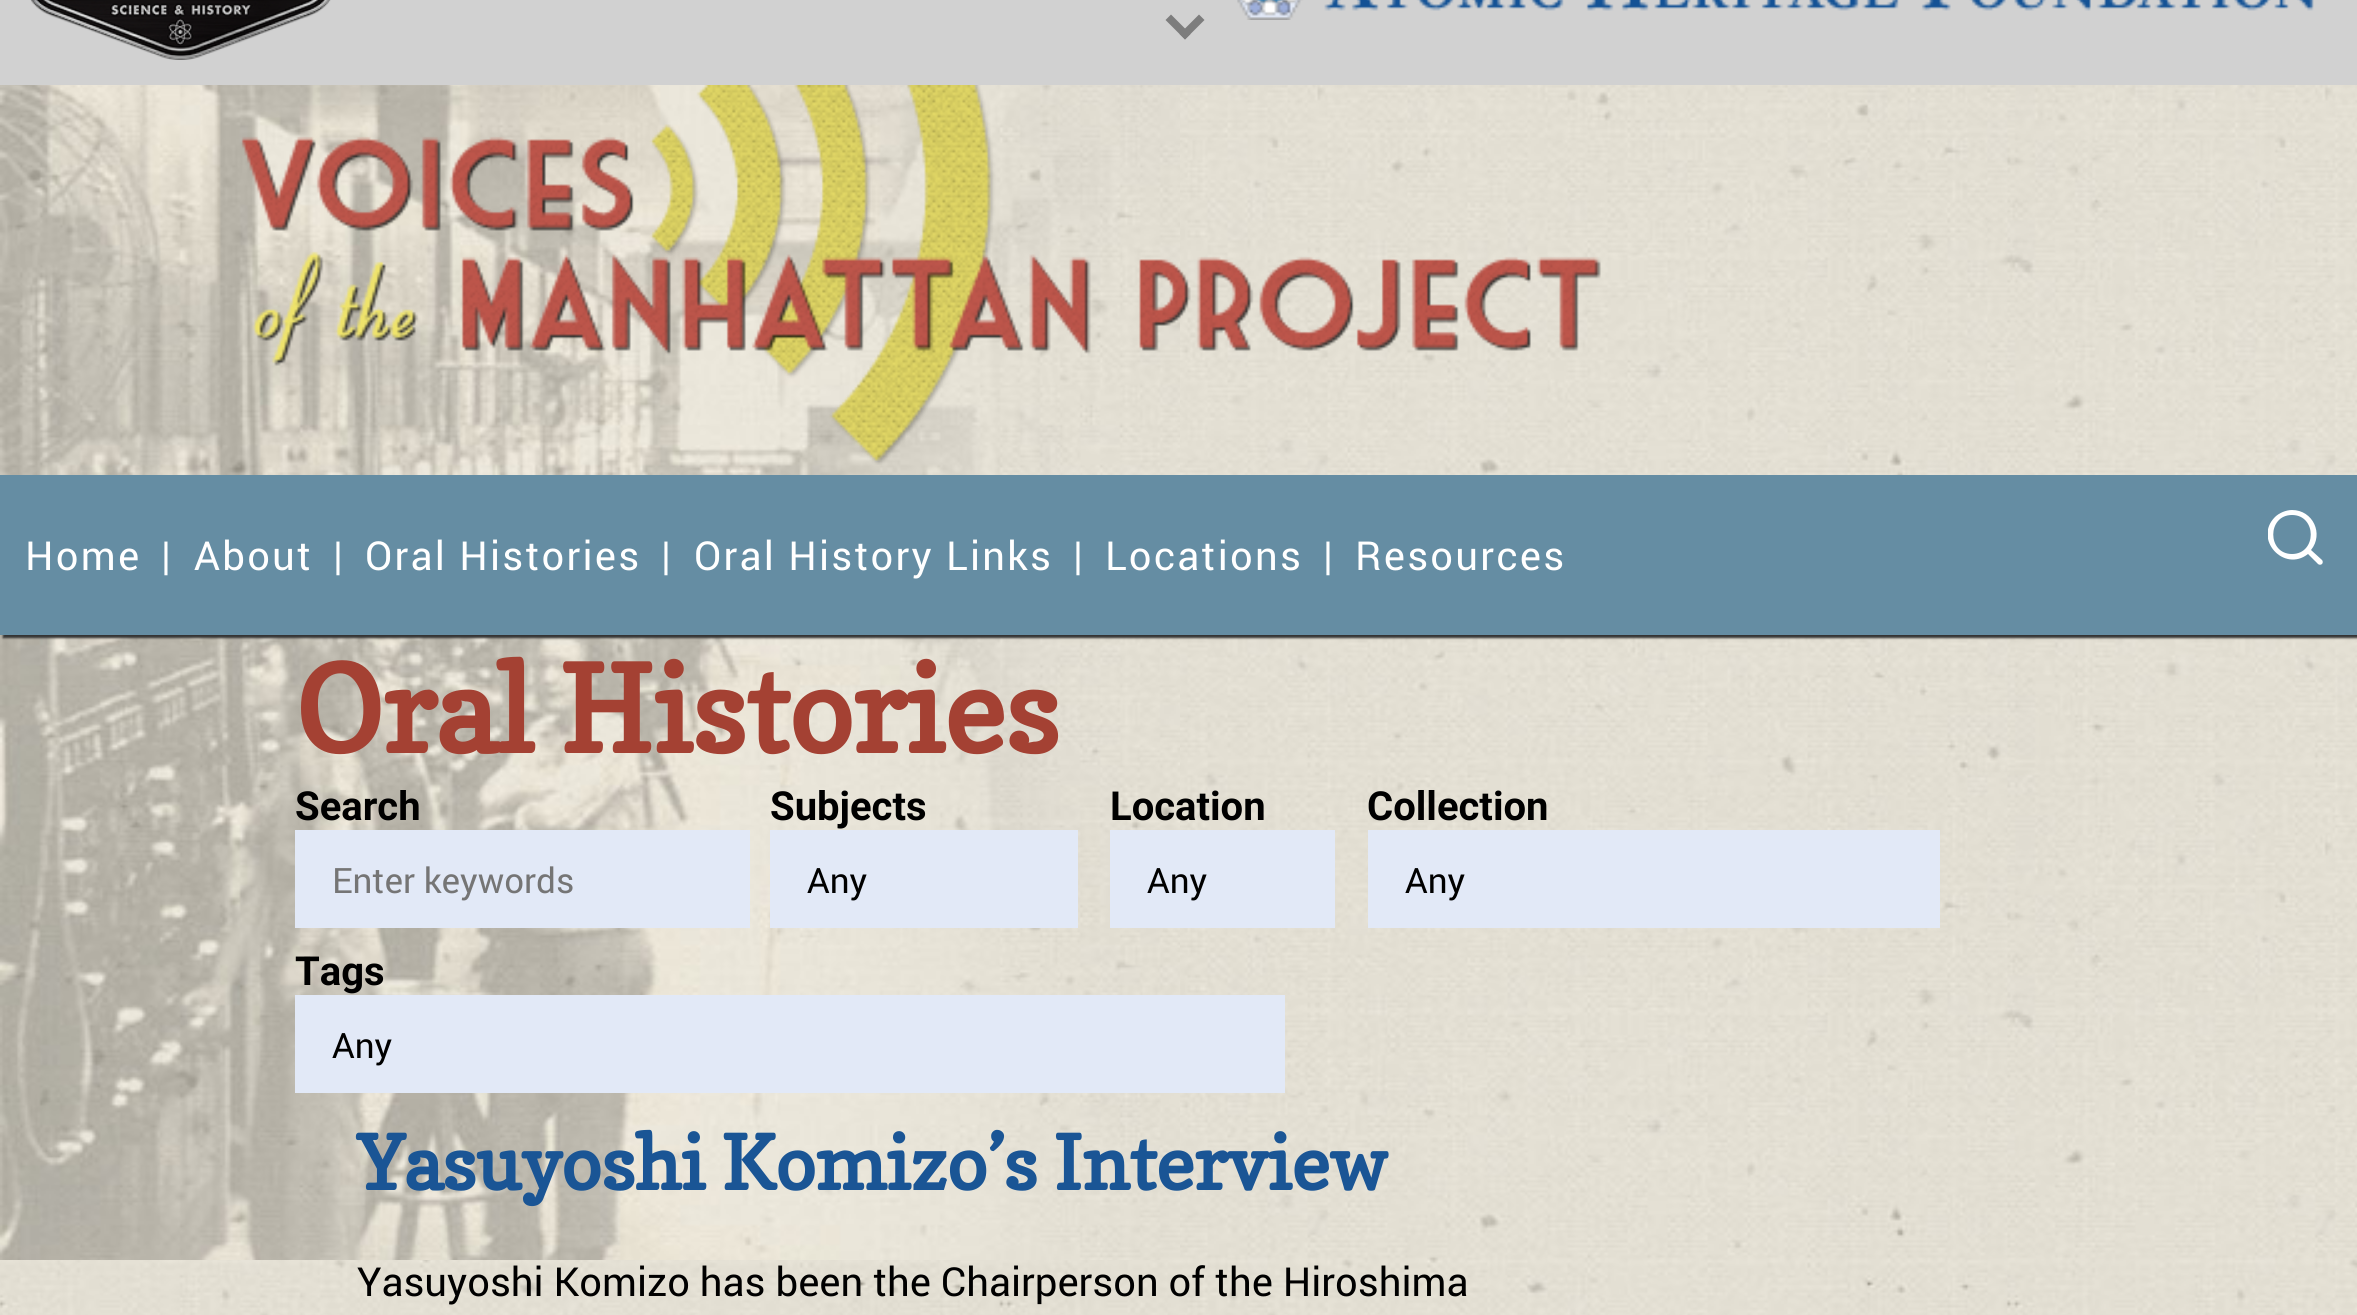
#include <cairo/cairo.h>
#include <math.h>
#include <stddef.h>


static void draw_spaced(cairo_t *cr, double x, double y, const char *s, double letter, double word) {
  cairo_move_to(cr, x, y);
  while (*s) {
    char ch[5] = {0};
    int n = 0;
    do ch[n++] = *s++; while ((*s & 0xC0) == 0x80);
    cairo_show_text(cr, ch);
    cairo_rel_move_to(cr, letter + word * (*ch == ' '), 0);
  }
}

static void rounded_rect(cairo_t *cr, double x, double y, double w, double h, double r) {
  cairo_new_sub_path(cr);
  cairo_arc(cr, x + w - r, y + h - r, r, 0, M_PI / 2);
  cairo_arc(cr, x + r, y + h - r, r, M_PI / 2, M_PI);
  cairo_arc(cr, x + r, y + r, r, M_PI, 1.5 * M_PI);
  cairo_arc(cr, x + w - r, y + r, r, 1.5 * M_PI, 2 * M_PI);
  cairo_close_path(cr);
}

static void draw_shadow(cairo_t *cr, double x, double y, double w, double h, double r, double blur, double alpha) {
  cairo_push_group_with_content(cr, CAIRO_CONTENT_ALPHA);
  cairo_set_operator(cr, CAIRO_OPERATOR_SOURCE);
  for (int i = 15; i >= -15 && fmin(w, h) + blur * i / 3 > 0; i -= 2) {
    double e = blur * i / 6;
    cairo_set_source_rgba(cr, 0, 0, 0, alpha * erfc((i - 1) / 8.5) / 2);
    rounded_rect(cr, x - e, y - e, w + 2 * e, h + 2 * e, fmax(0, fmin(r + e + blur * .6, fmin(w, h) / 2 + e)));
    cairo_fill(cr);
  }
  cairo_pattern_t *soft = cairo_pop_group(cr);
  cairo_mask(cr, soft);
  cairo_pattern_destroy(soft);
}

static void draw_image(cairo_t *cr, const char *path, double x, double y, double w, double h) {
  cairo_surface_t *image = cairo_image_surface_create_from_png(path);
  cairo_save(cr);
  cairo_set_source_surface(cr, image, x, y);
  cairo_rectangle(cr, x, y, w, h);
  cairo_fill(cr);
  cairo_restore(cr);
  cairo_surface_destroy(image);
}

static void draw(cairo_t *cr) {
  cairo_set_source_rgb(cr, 1, 1, 1);
  cairo_paint(cr);
  draw_image(cr, "images/1.png", 0, 85, 2357, 1230);
  draw_image(cr, "images/2.png", 0, 85, 1180, 1175);
  cairo_set_source_rgb(cr, 209 / 255.0, 209 / 255.0, 209 / 255.0);
  cairo_rectangle(cr, 0, 0, 2357, 85);
  cairo_fill(cr);
  draw_image(cr, "images/3.png", 30, 0, 301, 60);
  draw_image(cr, "images/4.png", 1237, 0, 1077, 20);
  cairo_set_source_rgb(cr, 125 / 255.0, 125 / 255.0, 125 / 255.0);
  cairo_new_path(cr);
  cairo_move_to(cr, 1199, 14.5);
  cairo_line_to(cr, 1204.5, 20);
  cairo_line_to(cr, 1185, 39.5);
  cairo_line_to(cr, 1179.5, 34);
  cairo_close_path(cr);
  cairo_fill(cr);
  cairo_new_path(cr);
  cairo_move_to(cr, 1171, 14.5);
  cairo_line_to(cr, 1190.5, 34);
  cairo_line_to(cr, 1185, 39.5);
  cairo_line_to(cr, 1165.5, 20);
  cairo_close_path(cr);
  cairo_fill(cr);
  draw_image(cr, "images/5.png", 241, 85, 1360, 380);
  cairo_set_source_rgb(cr, 51 / 255.0, 51 / 255.0, 51 / 255.0);
  draw_shadow(cr, 3, 478, 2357, 160, 0, 1, 1);
  cairo_set_source_rgb(cr, 101 / 255.0, 141 / 255.0, 163 / 255.0);
  cairo_rectangle(cr, 0, 475, 2357, 160);
  cairo_fill(cr);
  cairo_save(cr);
  cairo_rectangle(cr, 2268, 510, 55, 55);
  cairo_clip(cr);
  cairo_set_source_rgb(cr, 1, 1, 1);
  cairo_new_path(cr);
  cairo_move_to(cr, 2292, 510);
  cairo_curve_to(cr, 2286, 510, 2279, 513, 2275, 517);
  cairo_curve_to(cr, 2253, 539, 2284, 573, 2308, 554);
  cairo_line_to(cr, 2318, 564);
  cairo_curve_to(cr, 2319, 565, 2321, 565, 2322, 564);
  cairo_curve_to(cr, 2323, 563, 2323, 561, 2322, 560);
  cairo_line_to(cr, 2311, 550);
  cairo_curve_to(cr, 2324, 534, 2313, 510, 2292, 510);
  cairo_close_path(cr);
  cairo_move_to(cr, 2292, 515);
  cairo_curve_to(cr, 2317, 515, 2317, 554, 2292, 554);
  cairo_curve_to(cr, 2267, 554, 2267, 515, 2292, 515);
  cairo_close_path(cr);
  cairo_fill(cr);
  cairo_restore(cr);
  cairo_set_source_rgb(cr, 226 / 255.0, 233 / 255.0, 247 / 255.0);
  cairo_rectangle(cr, 295, 830, 455, 98);
  cairo_fill(cr);
  cairo_rectangle(cr, 770, 830, 308, 98);
  cairo_fill(cr);
  cairo_rectangle(cr, 1110, 830, 225, 98);
  cairo_fill(cr);
  cairo_rectangle(cr, 1368, 830, 572, 98);
  cairo_fill(cr);
  cairo_rectangle(cr, 295, 995, 990, 98);
  cairo_fill(cr);
  cairo_select_font_face(cr, "roboto", CAIRO_FONT_SLANT_NORMAL, CAIRO_FONT_WEIGHT_NORMAL);
  cairo_set_font_size(cr, 40);
  cairo_set_source_rgb(cr, 1, 1, 1);
  draw_spaced(cr, 25, 570, "Home", 2.25, 0);
  draw_spaced(cr, 161, 570, "|", 2.25, 0);
  draw_spaced(cr, 194, 570, "About", 2.25, 0);
  draw_spaced(cr, 333, 570, "|", 2.25, 0);
  draw_spaced(cr, 365, 570, "Oral Histories", 2.25, 0);
  draw_spaced(cr, 661, 570, "|", 2.25, 0);
  draw_spaced(cr, 694, 570, "Oral History Links", 2.25, 0);
  draw_spaced(cr, 1073, 570, "|", 2.25, 0);
  draw_spaced(cr, 1105, 570, "Locations", 2.25, 0);
  draw_spaced(cr, 1323, 570, "|", 2.25, 0);
  draw_spaced(cr, 1355, 570, "Resources", 2.25, 0);
  cairo_select_font_face(cr, "Copse", CAIRO_FONT_SLANT_NORMAL, CAIRO_FONT_WEIGHT_BOLD);
  cairo_set_font_size(cr, 120);
  cairo_set_source_rgb(cr, 164 / 255.0, 65 / 255.0, 51 / 255.0);
  cairo_move_to(cr, 295, 753);
  cairo_show_text(cr, "Oral Histories");
  cairo_select_font_face(cr, "Roboto", CAIRO_FONT_SLANT_NORMAL, CAIRO_FONT_WEIGHT_BOLD);
  cairo_set_font_size(cr, 40);
  cairo_set_source_rgb(cr, 0, 0, 0);
  cairo_move_to(cr, 295, 820);
  cairo_show_text(cr, "Search");
  cairo_select_font_face(cr, "roboto", CAIRO_FONT_SLANT_NORMAL, CAIRO_FONT_WEIGHT_NORMAL);
  cairo_set_font_size(cr, 35);
  cairo_set_source_rgb(cr, 117 / 255.0, 117 / 255.0, 117 / 255.0);
  cairo_move_to(cr, 332, 893);
  cairo_show_text(cr, "Enter keywords");
  cairo_select_font_face(cr, "Roboto", CAIRO_FONT_SLANT_NORMAL, CAIRO_FONT_WEIGHT_BOLD);
  cairo_set_font_size(cr, 40);
  cairo_set_source_rgb(cr, 0, 0, 0);
  cairo_move_to(cr, 770, 820);
  cairo_show_text(cr, "Subjects");
  cairo_select_font_face(cr, "roboto", CAIRO_FONT_SLANT_NORMAL, CAIRO_FONT_WEIGHT_NORMAL);
  cairo_set_font_size(cr, 35);
  cairo_move_to(cr, 807, 893);
  cairo_show_text(cr, "Any");
  cairo_select_font_face(cr, "Roboto", CAIRO_FONT_SLANT_NORMAL, CAIRO_FONT_WEIGHT_BOLD);
  cairo_set_font_size(cr, 40);
  cairo_move_to(cr, 1110, 820);
  cairo_show_text(cr, "Location");
  cairo_select_font_face(cr, "roboto", CAIRO_FONT_SLANT_NORMAL, CAIRO_FONT_WEIGHT_NORMAL);
  cairo_set_font_size(cr, 35);
  cairo_move_to(cr, 1147, 893);
  cairo_show_text(cr, "Any");
  cairo_select_font_face(cr, "Roboto", CAIRO_FONT_SLANT_NORMAL, CAIRO_FONT_WEIGHT_BOLD);
  cairo_set_font_size(cr, 40);
  cairo_move_to(cr, 1367, 820);
  cairo_show_text(cr, "Collection");
  cairo_select_font_face(cr, "roboto", CAIRO_FONT_SLANT_NORMAL, CAIRO_FONT_WEIGHT_NORMAL);
  cairo_set_font_size(cr, 35);
  cairo_move_to(cr, 1405, 893);
  cairo_show_text(cr, "Any");
  cairo_select_font_face(cr, "Roboto", CAIRO_FONT_SLANT_NORMAL, CAIRO_FONT_WEIGHT_BOLD);
  cairo_set_font_size(cr, 40);
  cairo_move_to(cr, 295, 985);
  cairo_show_text(cr, "Tags");
  cairo_select_font_face(cr, "roboto", CAIRO_FONT_SLANT_NORMAL, CAIRO_FONT_WEIGHT_NORMAL);
  cairo_set_font_size(cr, 35);
  cairo_move_to(cr, 332, 1058);
  cairo_show_text(cr, "Any");
  cairo_select_font_face(cr, "Copse", CAIRO_FONT_SLANT_NORMAL, CAIRO_FONT_WEIGHT_BOLD);
  cairo_set_font_size(cr, 75);
  cairo_set_source_rgb(cr, 26 / 255.0, 85 / 255.0, 149 / 255.0);
  cairo_move_to(cr, 357, 1190);
  cairo_show_text(cr, "Yasuyoshi Komizo’s Interview");
  cairo_select_font_face(cr, "roboto", CAIRO_FONT_SLANT_NORMAL, CAIRO_FONT_WEIGHT_NORMAL);
  cairo_set_font_size(cr, 40);
  cairo_set_source_rgb(cr, 0, 0, 0);
  cairo_move_to(cr, 357, 1296);
  cairo_show_text(cr, "Yasuyoshi Komizo has been the Chairperson of the Hiroshima");
}

int main(void) {
  cairo_surface_t *surface = cairo_image_surface_create(CAIRO_FORMAT_RGB24, 2357, 1315);
  cairo_t *cr = cairo_create(surface);
  cairo_font_options_t *options = cairo_font_options_create();
  cairo_font_options_set_hint_metrics(options, CAIRO_HINT_METRICS_OFF);
  cairo_font_options_set_hint_style(options, CAIRO_HINT_STYLE_NONE);
  cairo_set_font_options(cr, options);
  cairo_set_miter_limit(cr, 4);
  draw(cr);
  cairo_surface_write_to_png(surface, "out.png");
  cairo_font_options_destroy(options);
  cairo_destroy(cr);
  cairo_surface_destroy(surface);
  return 0;
}
